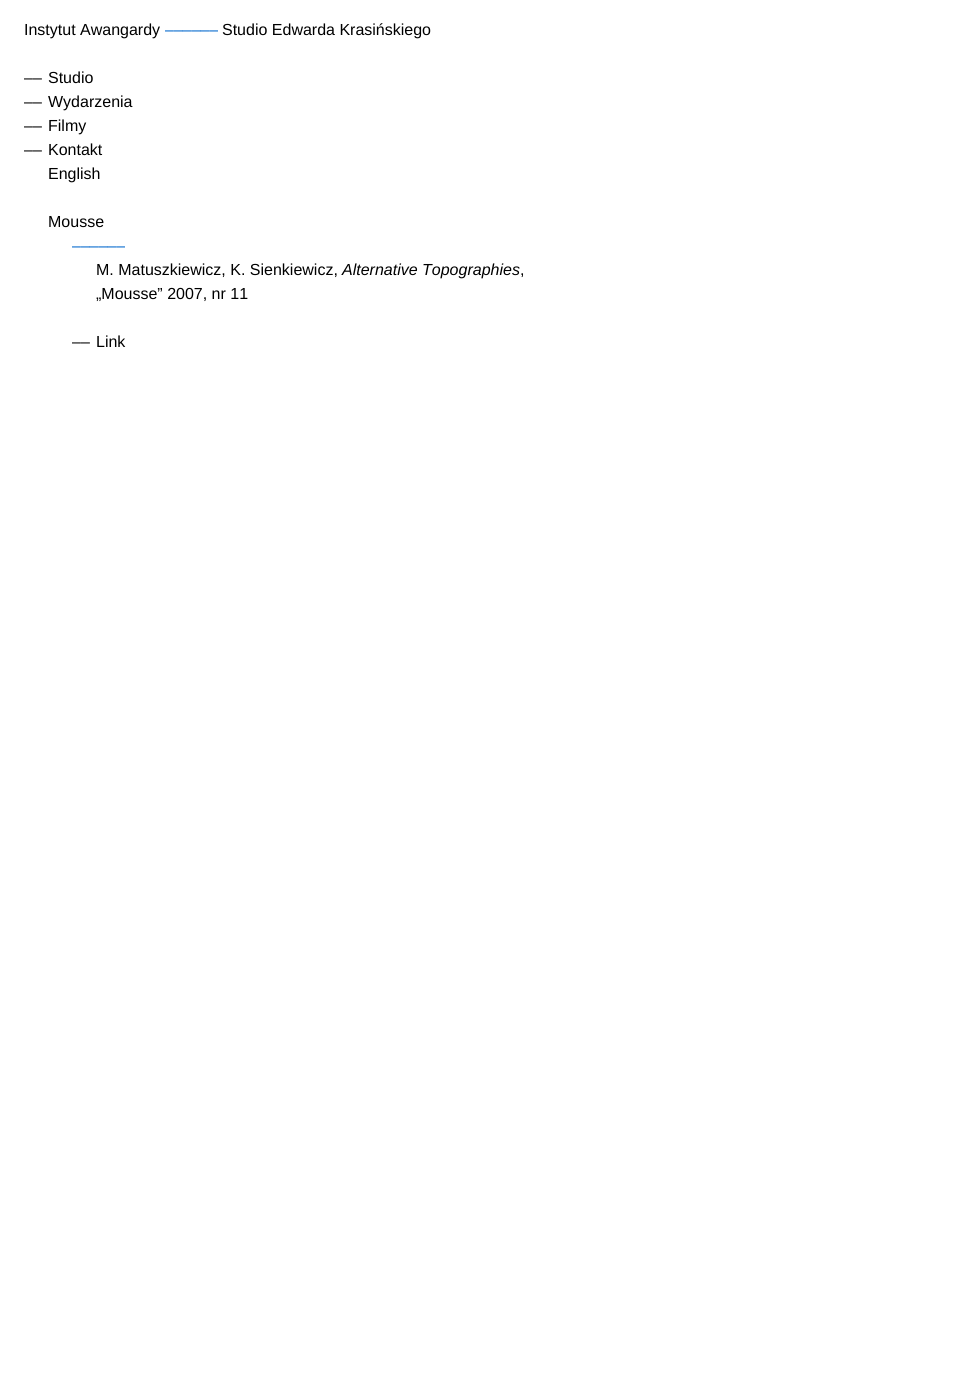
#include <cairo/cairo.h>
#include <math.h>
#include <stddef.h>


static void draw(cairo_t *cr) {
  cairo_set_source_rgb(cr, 1, 1, 1);
  cairo_paint(cr);
  cairo_select_font_face(cr, "Liberation Sans", CAIRO_FONT_SLANT_NORMAL, CAIRO_FONT_WEIGHT_NORMAL);
  cairo_set_font_size(cr, 16);
  cairo_set_source_rgb(cr, 0, 0, 0);
  cairo_move_to(cr, 24, 35);
  cairo_show_text(cr, "Instytut Awangardy");
  cairo_set_source_rgb(cr, 0, 102 / 255.0, 204 / 255.0);
  cairo_move_to(cr, 165, 35);
  cairo_show_text(cr, "––––––");
  cairo_set_source_rgb(cr, 0, 0, 0);
  cairo_move_to(cr, 222, 35);
  cairo_show_text(cr, "Studio Edwarda Krasińskiego");
  cairo_move_to(cr, 24, 83);
  cairo_show_text(cr, "––");
  cairo_move_to(cr, 48, 83);
  cairo_show_text(cr, "Studio");
  cairo_move_to(cr, 24, 107);
  cairo_show_text(cr, "––");
  cairo_move_to(cr, 48, 107);
  cairo_show_text(cr, "Wydarzenia");
  cairo_move_to(cr, 24, 131);
  cairo_show_text(cr, "––");
  cairo_move_to(cr, 48, 131);
  cairo_show_text(cr, "Filmy");
  cairo_move_to(cr, 24, 155);
  cairo_show_text(cr, "––");
  cairo_move_to(cr, 48, 155);
  cairo_show_text(cr, "Kontakt");
  cairo_move_to(cr, 48, 179);
  cairo_show_text(cr, "English");
  cairo_move_to(cr, 48, 227);
  cairo_show_text(cr, "Mousse");
  cairo_set_source_rgb(cr, 0, 102 / 255.0, 204 / 255.0);
  cairo_move_to(cr, 72, 251);
  cairo_show_text(cr, "––––––");
  cairo_set_source_rgb(cr, 0, 0, 0);
  cairo_move_to(cr, 96, 275);
  cairo_show_text(cr, "M. Matuszkiewicz, K. Sienkiewicz,");
  cairo_select_font_face(cr, "Liberation Sans", CAIRO_FONT_SLANT_ITALIC, CAIRO_FONT_WEIGHT_NORMAL);
  cairo_move_to(cr, 342, 275);
  cairo_show_text(cr, "Alternative Topographies");
  cairo_select_font_face(cr, "Liberation Sans", CAIRO_FONT_SLANT_NORMAL, CAIRO_FONT_WEIGHT_NORMAL);
  cairo_move_to(cr, 520, 275);
  cairo_show_text(cr, ",");
  cairo_move_to(cr, 96, 299);
  cairo_show_text(cr, "„Mousse” 2007, nr 11");
  cairo_move_to(cr, 72, 347);
  cairo_show_text(cr, "––");
  cairo_move_to(cr, 96, 347);
  cairo_show_text(cr, "Link");
}

int main(void) {
  cairo_surface_t *surface = cairo_image_surface_create(CAIRO_FORMAT_RGB24, 972, 1395);
  cairo_t *cr = cairo_create(surface);
  cairo_font_options_t *options = cairo_font_options_create();
  cairo_font_options_set_hint_metrics(options, CAIRO_HINT_METRICS_OFF);
  cairo_font_options_set_hint_style(options, CAIRO_HINT_STYLE_NONE);
  cairo_set_font_options(cr, options);
  cairo_set_miter_limit(cr, 4);
  draw(cr);
  cairo_surface_write_to_png(surface, "out.png");
  cairo_font_options_destroy(options);
  cairo_destroy(cr);
  cairo_surface_destroy(surface);
  return 0;
}
